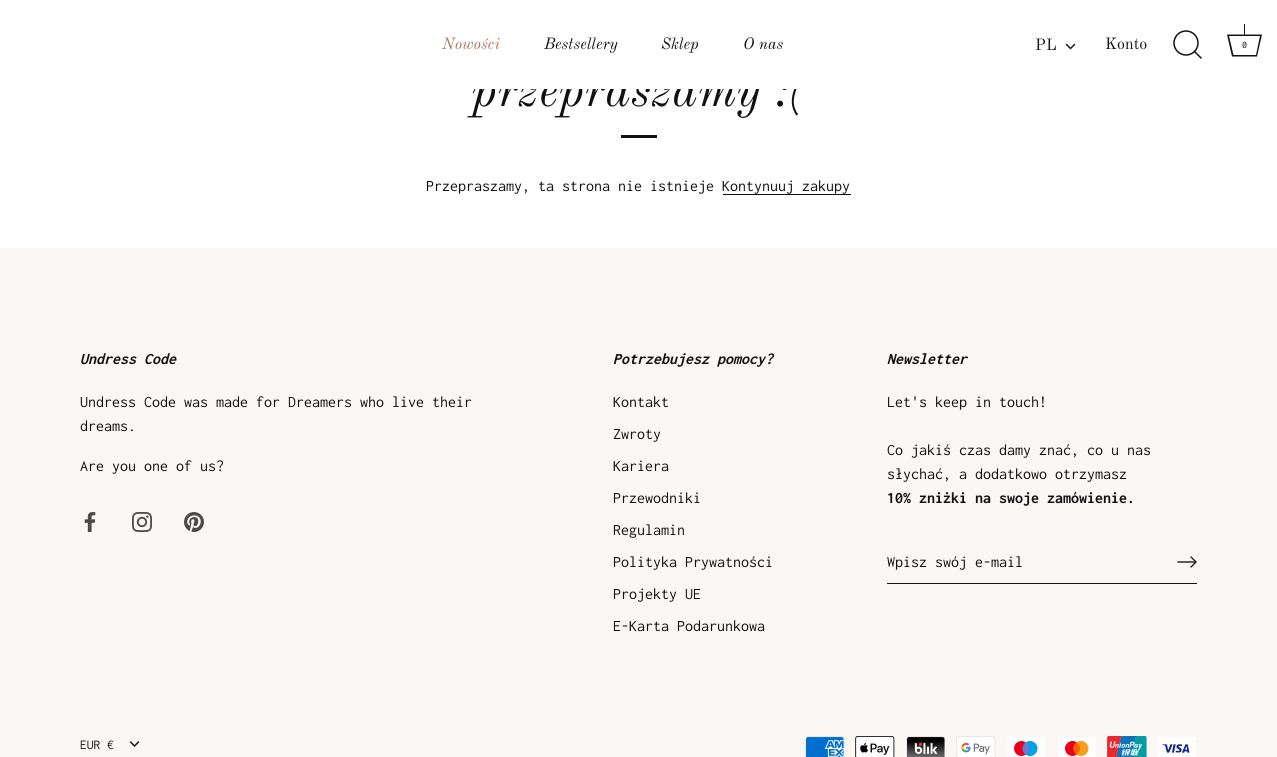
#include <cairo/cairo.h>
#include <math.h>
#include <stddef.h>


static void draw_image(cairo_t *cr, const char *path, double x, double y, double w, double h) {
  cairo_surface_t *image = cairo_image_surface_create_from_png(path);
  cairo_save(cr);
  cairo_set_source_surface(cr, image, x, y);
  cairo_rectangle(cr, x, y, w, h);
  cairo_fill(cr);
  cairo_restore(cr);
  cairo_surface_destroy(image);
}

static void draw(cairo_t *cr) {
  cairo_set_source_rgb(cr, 1, 1, 1);
  cairo_paint(cr);
  cairo_new_path(cr);
  cairo_move_to(cr, 1066.5, 44.5);
  cairo_line_to(cr, 1070.5, 48.5);
  cairo_line_to(cr, 1074.5, 44.5);
  cairo_set_source_rgb(cr, 17 / 255.0, 17 / 255.0, 17 / 255.0);
  cairo_set_line_width(cr, 1.4);
  cairo_set_line_cap(cr, CAIRO_LINE_CAP_ROUND);
  cairo_stroke(cr);
  cairo_arc(cr, 1186, 43, 12, 0, 2 * M_PI);
  cairo_set_line_width(cr, 1.5);
  cairo_set_line_cap(cr, CAIRO_LINE_CAP_BUTT);
  cairo_stroke(cr);
  cairo_new_path(cr);
  cairo_move_to(cr, 1201, 58);
  cairo_line_to(cr, 1194.5, 51.5);
  cairo_set_line_cap(cr, CAIRO_LINE_CAP_ROUND);
  cairo_set_line_join(cr, CAIRO_LINE_JOIN_ROUND);
  cairo_stroke(cr);
  cairo_new_path(cr);
  cairo_move_to(cr, 1260, 36);
  cairo_line_to(cr, 1256, 55);
  cairo_line_to(cr, 1233.5, 55);
  cairo_line_to(cr, 1229, 36);
  cairo_line_to(cr, 1260, 36);
  cairo_move_to(cr, 1262, 34.5);
  cairo_line_to(cr, 1227, 34.5);
  cairo_line_to(cr, 1232, 56.5);
  cairo_line_to(cr, 1257, 56.5);
  cairo_close_path(cr);
  cairo_fill(cr);
  cairo_rectangle(cr, 1244, 24, 1, 11);
  cairo_fill(cr);
  cairo_rectangle(cr, 621, 135, 36, 3);
  cairo_fill(cr);
  cairo_rectangle(cr, 723, 194, 128, 1);
  cairo_fill(cr);
  cairo_set_source_rgb(cr, 251 / 255.0, 247 / 255.0, 245 / 255.0);
  cairo_rectangle(cr, 0, 248, 1277, 509);
  cairo_fill(cr);
  draw_image(cr, "images/1.png", 84, 512, 12, 20);
  draw_image(cr, "images/2.png", 132, 512, 20, 20);
  draw_image(cr, "images/3.png", 184, 512, 20, 20);
  cairo_set_source_rgb(cr, 17 / 255.0, 17 / 255.0, 17 / 255.0);
  cairo_rectangle(cr, 887, 583, 310, 1);
  cairo_fill(cr);
  cairo_new_path(cr);
  cairo_move_to(cr, 1191, 567);
  cairo_line_to(cr, 1196, 562);
  cairo_line_to(cr, 1191, 557);
  cairo_set_line_width(cr, 1.3);
  cairo_set_line_join(cr, CAIRO_LINE_JOIN_MITER);
  cairo_stroke(cr);
  cairo_new_path(cr);
  cairo_move_to(cr, 1195, 562);
  cairo_line_to(cr, 1178, 562);
  cairo_set_line_join(cr, CAIRO_LINE_JOIN_ROUND);
  cairo_stroke(cr);
  cairo_new_path(cr);
  cairo_move_to(cr, 130.5, 742);
  cairo_line_to(cr, 134.5, 746);
  cairo_line_to(cr, 138.5, 742);
  cairo_set_line_width(cr, 1.4);
  cairo_set_line_join(cr, CAIRO_LINE_JOIN_MITER);
  cairo_stroke(cr);
  draw_image(cr, "images/4.png", 805, 736, 39, 21);
  draw_image(cr, "images/5.png", 855, 736, 40, 21);
  draw_image(cr, "images/6.png", 906, 736, 39, 21);
  draw_image(cr, "images/7.png", 956, 736, 40, 21);
  draw_image(cr, "images/8.png", 1007, 737, 38, 20);
  draw_image(cr, "images/9.png", 1058, 737, 38, 20);
  draw_image(cr, "images/10.png", 1107, 736, 40, 21);
  draw_image(cr, "images/11.png", 1158, 737, 38, 20);
  cairo_select_font_face(cr, "Old Standard TT", CAIRO_FONT_SLANT_ITALIC, CAIRO_FONT_WEIGHT_NORMAL);
  cairo_set_font_size(cr, 16);
  cairo_set_source_rgb(cr, 173 / 255.0, 118 / 255.0, 93 / 255.0);
  cairo_move_to(cr, 442, 49);
  cairo_show_text(cr, "Nowości");
  cairo_set_source_rgb(cr, 17 / 255.0, 17 / 255.0, 17 / 255.0);
  cairo_move_to(cr, 544, 49);
  cairo_show_text(cr, "Bestsellery");
  cairo_move_to(cr, 661, 49);
  cairo_show_text(cr, "Sklep");
  cairo_move_to(cr, 743, 49);
  cairo_show_text(cr, "O nas");
  cairo_select_font_face(cr, "Old Standard TT", CAIRO_FONT_SLANT_NORMAL, CAIRO_FONT_WEIGHT_NORMAL);
  cairo_move_to(cr, 1035, 50);
  cairo_show_text(cr, "PL");
  cairo_move_to(cr, 1105, 49);
  cairo_show_text(cr, "Konto");
  cairo_select_font_face(cr, "Inconsolata", CAIRO_FONT_SLANT_NORMAL, CAIRO_FONT_WEIGHT_NORMAL);
  cairo_set_font_size(cr, 10);
  cairo_move_to(cr, 1242, 48);
  cairo_show_text(cr, "0");
  cairo_select_font_face(cr, "Old Standard TT", CAIRO_FONT_SLANT_ITALIC, CAIRO_FONT_WEIGHT_NORMAL);
  cairo_set_font_size(cr, 48);
  cairo_move_to(cr, 471, 106);
  cairo_show_text(cr, "przepraszamy :(");
  cairo_set_source_rgb(cr, 1, 1, 1);
  cairo_rectangle(cr, 474, 71, 336, 18);
  cairo_fill(cr);
  cairo_select_font_face(cr, "Inconsolata", CAIRO_FONT_SLANT_NORMAL, CAIRO_FONT_WEIGHT_NORMAL);
  cairo_set_font_size(cr, 16);
  cairo_set_source_rgb(cr, 17 / 255.0, 17 / 255.0, 17 / 255.0);
  cairo_move_to(cr, 426, 191);
  cairo_show_text(cr, "Przepraszamy, ta strona nie istnieje Kontynuuj zakupy");
  cairo_select_font_face(cr, "Inconsolata", CAIRO_FONT_SLANT_ITALIC, CAIRO_FONT_WEIGHT_BOLD);
  cairo_move_to(cr, 80, 364);
  cairo_show_text(cr, "Undress Code");
  cairo_select_font_face(cr, "Inconsolata", CAIRO_FONT_SLANT_NORMAL, CAIRO_FONT_WEIGHT_NORMAL);
  cairo_move_to(cr, 80, 407);
  cairo_show_text(cr, "Undress Code was made for Dreamers who live their");
  cairo_move_to(cr, 80, 431);
  cairo_show_text(cr, "dreams.");
  cairo_move_to(cr, 80, 471);
  cairo_show_text(cr, "Are you one of us?");
  cairo_select_font_face(cr, "Inconsolata", CAIRO_FONT_SLANT_ITALIC, CAIRO_FONT_WEIGHT_BOLD);
  cairo_move_to(cr, 613, 364);
  cairo_show_text(cr, "Potrzebujesz pomocy?");
  cairo_select_font_face(cr, "Inconsolata", CAIRO_FONT_SLANT_NORMAL, CAIRO_FONT_WEIGHT_NORMAL);
  cairo_move_to(cr, 613, 407);
  cairo_show_text(cr, "Kontakt");
  cairo_move_to(cr, 613, 439);
  cairo_show_text(cr, "Zwroty");
  cairo_move_to(cr, 613, 471);
  cairo_show_text(cr, "Kariera");
  cairo_move_to(cr, 613, 503);
  cairo_show_text(cr, "Przewodniki");
  cairo_move_to(cr, 613, 535);
  cairo_show_text(cr, "Regulamin");
  cairo_move_to(cr, 613, 567);
  cairo_show_text(cr, "Polityka Prywatności");
  cairo_move_to(cr, 613, 599);
  cairo_show_text(cr, "Projekty UE");
  cairo_move_to(cr, 613, 631);
  cairo_show_text(cr, "E-Karta Podarunkowa");
  cairo_select_font_face(cr, "Inconsolata", CAIRO_FONT_SLANT_ITALIC, CAIRO_FONT_WEIGHT_BOLD);
  cairo_move_to(cr, 887, 364);
  cairo_show_text(cr, "Newsletter");
  cairo_select_font_face(cr, "Inconsolata", CAIRO_FONT_SLANT_NORMAL, CAIRO_FONT_WEIGHT_NORMAL);
  cairo_move_to(cr, 887, 407);
  cairo_show_text(cr, "Let's keep in touch!");
  cairo_move_to(cr, 887, 455);
  cairo_show_text(cr, "Co jakiś czas damy znać, co u nas");
  cairo_move_to(cr, 887, 479);
  cairo_show_text(cr, "słychać, a dodatkowo otrzymasz");
  cairo_select_font_face(cr, "Inconsolata", CAIRO_FONT_SLANT_NORMAL, CAIRO_FONT_WEIGHT_BOLD);
  cairo_move_to(cr, 887, 503);
  cairo_show_text(cr, "10% zniżki na swoje zamówienie.");
  cairo_select_font_face(cr, "Inconsolata", CAIRO_FONT_SLANT_NORMAL, CAIRO_FONT_WEIGHT_NORMAL);
  cairo_move_to(cr, 887, 567);
  cairo_show_text(cr, "Wpisz swój e-mail");
  cairo_set_font_size(cr, 13.5);
  cairo_move_to(cr, 80, 749);
  cairo_show_text(cr, "EUR €");
}

int main(void) {
  cairo_surface_t *surface = cairo_image_surface_create(CAIRO_FORMAT_RGB24, 1277, 757);
  cairo_t *cr = cairo_create(surface);
  cairo_font_options_t *options = cairo_font_options_create();
  cairo_font_options_set_hint_metrics(options, CAIRO_HINT_METRICS_OFF);
  cairo_font_options_set_hint_style(options, CAIRO_HINT_STYLE_NONE);
  cairo_set_font_options(cr, options);
  cairo_set_miter_limit(cr, 4);
  draw(cr);
  cairo_surface_write_to_png(surface, "out.png");
  cairo_font_options_destroy(options);
  cairo_destroy(cr);
  cairo_surface_destroy(surface);
  return 0;
}
